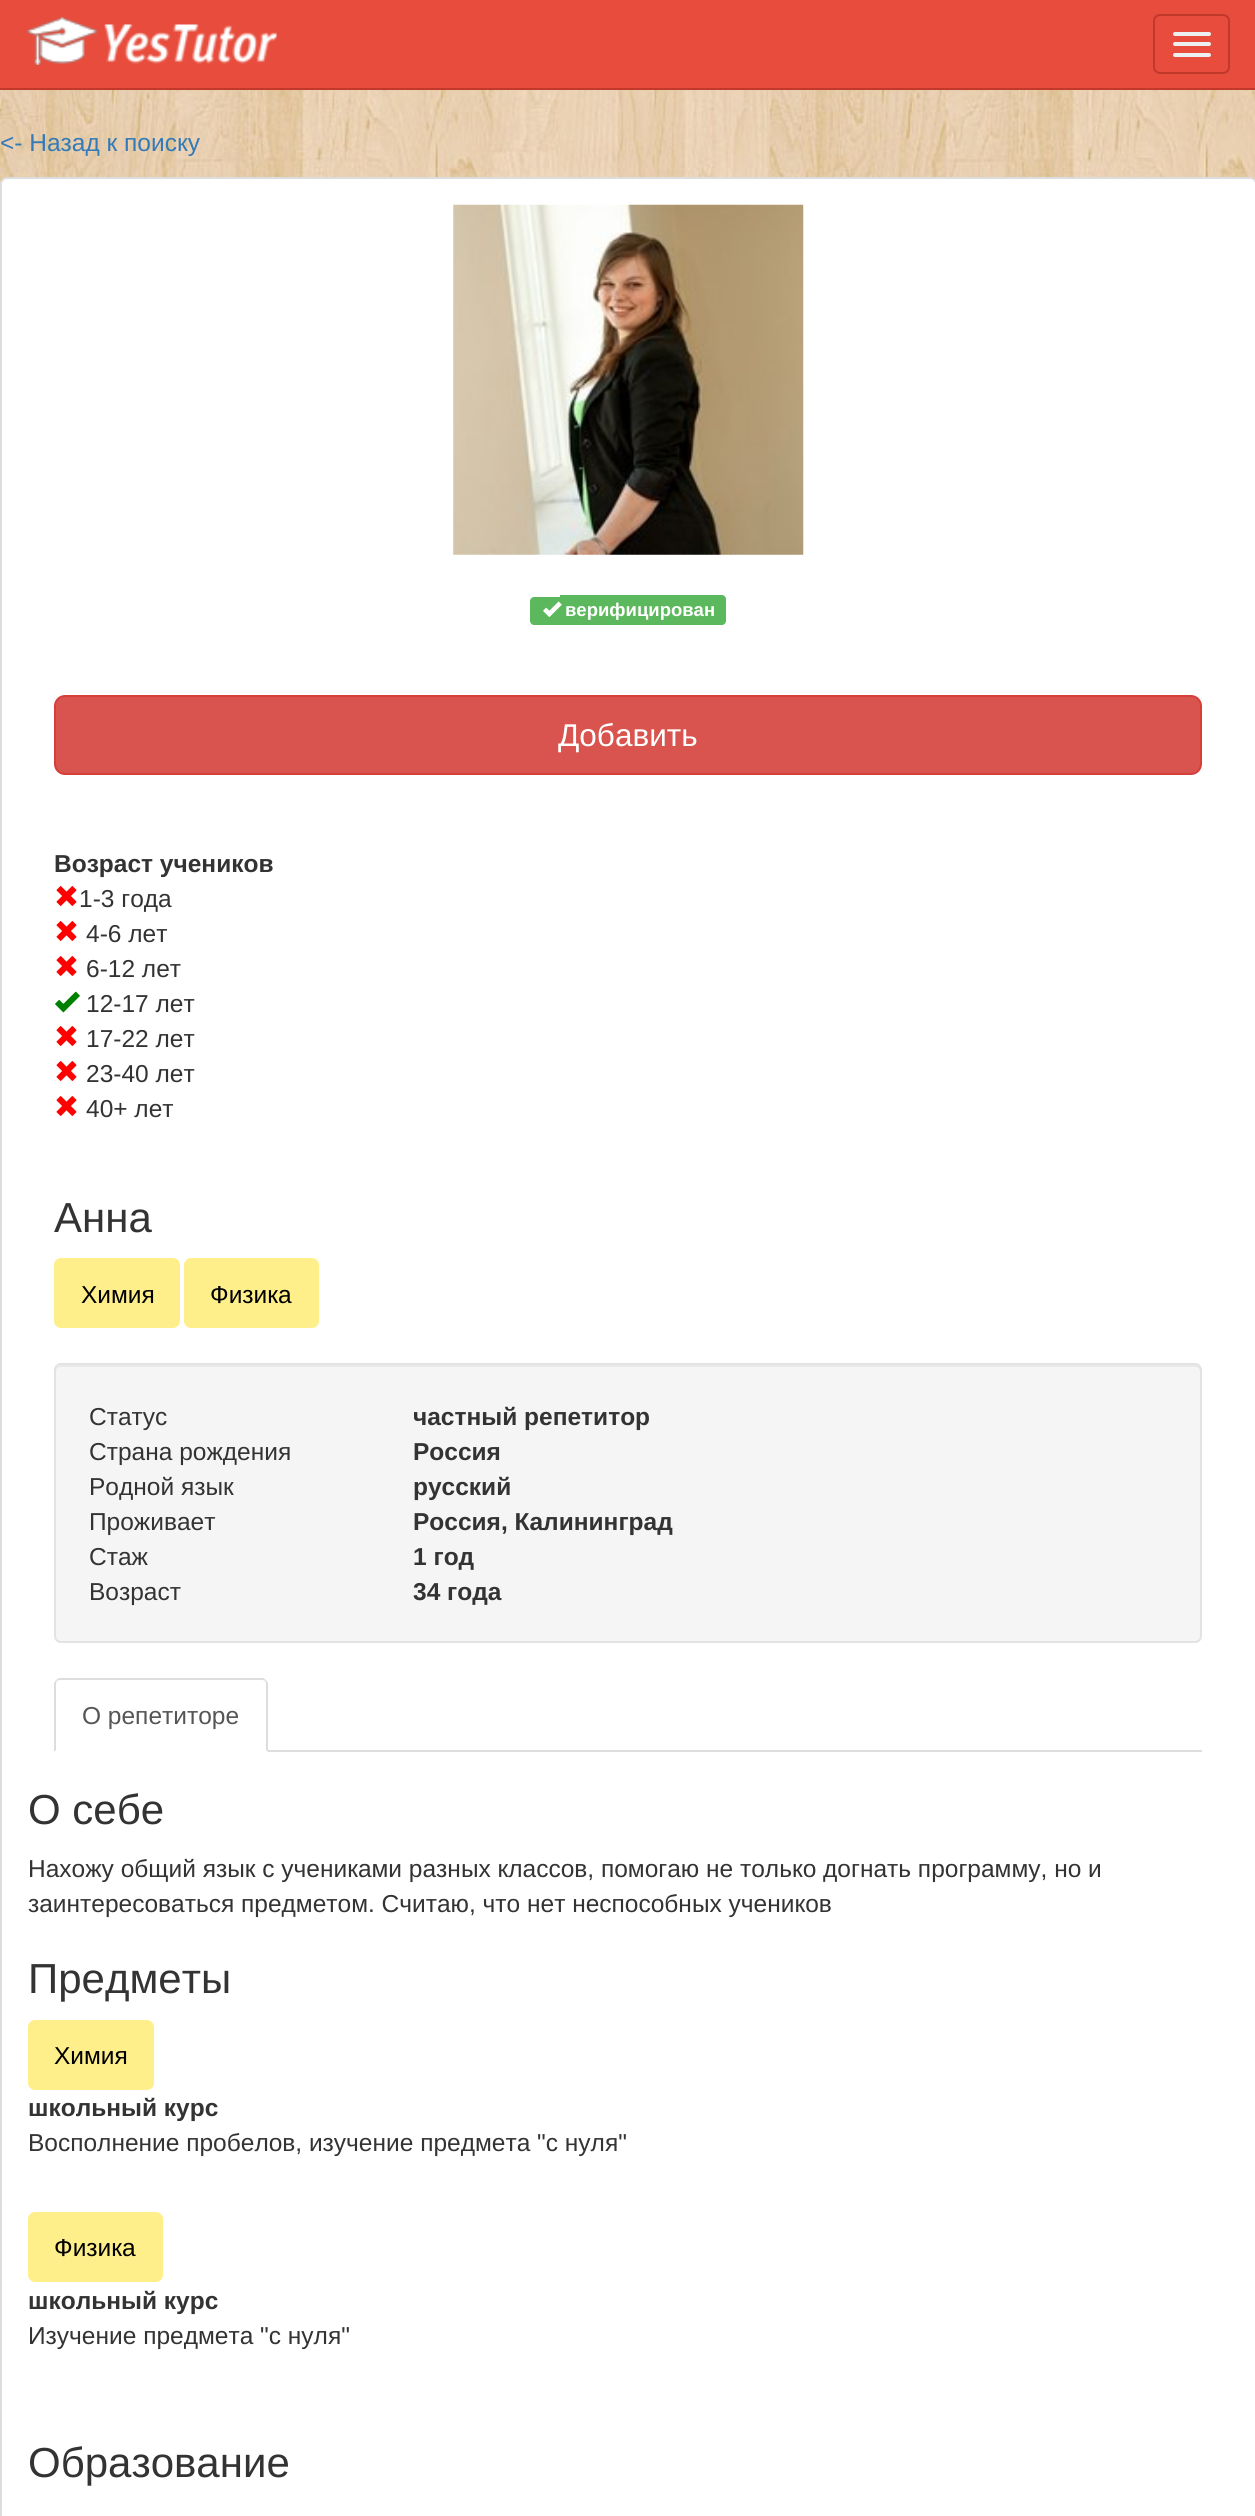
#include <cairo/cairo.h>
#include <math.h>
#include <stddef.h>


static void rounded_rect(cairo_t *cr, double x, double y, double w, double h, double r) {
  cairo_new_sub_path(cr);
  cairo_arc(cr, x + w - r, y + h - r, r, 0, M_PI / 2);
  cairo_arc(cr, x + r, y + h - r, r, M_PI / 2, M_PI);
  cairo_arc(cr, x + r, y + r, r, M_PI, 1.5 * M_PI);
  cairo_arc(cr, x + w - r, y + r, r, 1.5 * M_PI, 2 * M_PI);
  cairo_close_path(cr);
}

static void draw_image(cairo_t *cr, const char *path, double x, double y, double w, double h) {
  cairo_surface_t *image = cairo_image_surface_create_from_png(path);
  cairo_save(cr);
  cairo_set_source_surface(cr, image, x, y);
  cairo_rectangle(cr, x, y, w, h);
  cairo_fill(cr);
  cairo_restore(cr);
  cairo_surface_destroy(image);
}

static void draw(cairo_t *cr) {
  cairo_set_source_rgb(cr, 1, 1, 1);
  cairo_paint(cr);
  draw_image(cr, "images/1.png", 0, 90, 1255, 94);
  cairo_set_source_rgb(cr, 231 / 255.0, 76 / 255.0, 60 / 255.0);
  cairo_rectangle(cr, 0, 0, 1255, 88);
  cairo_fill(cr);
  cairo_set_source_rgb(cr, 192 / 255.0, 57 / 255.0, 43 / 255.0);
  cairo_rectangle(cr, 0, 88, 1255, 2);
  cairo_fill(cr);
  draw_image(cr, "images/2.png", 26, 17, 251, 48);
  rounded_rect(cr, 1154, 15, 75, 58, 6);
  cairo_stroke(cr);
  cairo_set_source_rgb(cr, 236 / 255.0, 240 / 255.0, 241 / 255.0);
  rounded_rect(cr, 1173, 32, 38, 4, 2);
  cairo_fill(cr);
  rounded_rect(cr, 1173, 42, 38, 4, 2);
  cairo_fill(cr);
  rounded_rect(cr, 1173, 53, 38, 4, 2);
  cairo_fill(cr);
  cairo_set_source_rgb(cr, 1, 1, 1);
  rounded_rect(cr, 1, 178, 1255, 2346, 6);
  cairo_fill_preserve(cr);
  cairo_set_source_rgb(cr, 221 / 255.0, 221 / 255.0, 221 / 255.0);
  cairo_stroke(cr);
  draw_image(cr, "images/3.png", 453, 204, 351, 351);
  cairo_set_source_rgb(cr, 92 / 255.0, 184 / 255.0, 92 / 255.0);
  cairo_new_path(cr);
  cairo_move_to(cr, 534, 597);
  cairo_line_to(cr, 560, 597);
  cairo_line_to(cr, 560, 625);
  cairo_line_to(cr, 534, 625);
  cairo_curve_to(cr, 532, 625, 530, 623, 530, 621);
  cairo_line_to(cr, 530, 601);
  cairo_curve_to(cr, 530, 599, 532, 597, 534, 597);
  cairo_close_path(cr);
  cairo_fill(cr);
  cairo_new_path(cr);
  cairo_move_to(cr, 560, 595);
  cairo_line_to(cr, 722, 595);
  cairo_curve_to(cr, 724, 595, 726, 597, 726, 599);
  cairo_line_to(cr, 726, 621);
  cairo_curve_to(cr, 726, 623, 724, 625, 722, 625);
  cairo_line_to(cr, 560, 625);
  cairo_close_path(cr);
  cairo_fill(cr);
  draw_image(cr, "images/4.png", 543, 601, 19, 16);
  cairo_set_source_rgb(cr, 217 / 255.0, 83 / 255.0, 79 / 255.0);
  rounded_rect(cr, 55, 696, 1146, 78, 10);
  cairo_fill_preserve(cr);
  cairo_set_source_rgb(cr, 212 / 255.0, 63 / 255.0, 58 / 255.0);
  cairo_stroke(cr);
  draw_image(cr, "images/5.png", 56, 886, 21, 20);
  draw_image(cr, "images/5.png", 56, 921, 21, 20);
  draw_image(cr, "images/5.png", 56, 956, 21, 20);
  draw_image(cr, "images/6.png", 55, 991, 25, 22);
  draw_image(cr, "images/5.png", 56, 1026, 21, 20);
  draw_image(cr, "images/5.png", 56, 1061, 21, 20);
  draw_image(cr, "images/5.png", 56, 1096, 21, 20);
  cairo_set_source_rgb(cr, 1, 239 / 255.0, 139 / 255.0);
  rounded_rect(cr, 54, 1258, 126, 70, 7);
  cairo_fill(cr);
  rounded_rect(cr, 184, 1258, 135, 70, 7);
  cairo_fill(cr);
  cairo_set_source_rgb(cr, 245 / 255.0, 245 / 255.0, 245 / 255.0);
  rounded_rect(cr, 54, 1363, 1148, 280, 7);
  cairo_fill(cr);
  cairo_set_source_rgb(cr, 233 / 255.0, 233 / 255.0, 233 / 255.0);
  cairo_new_path(cr);
  cairo_move_to(cr, 61, 1367);
  cairo_line_to(cr, 1195, 1367);
  cairo_curve_to(cr, 1198, 1367, 1200, 1369, 1200, 1372);
  cairo_line_to(cr, 1200, 1638);
  cairo_line_to(cr, 1199, 1641);
  cairo_curve_to(cr, 1200, 1640, 1201, 1638, 1201, 1637);
  cairo_line_to(cr, 1201, 1370);
  cairo_curve_to(cr, 1201, 1367, 1199, 1365, 1196, 1365);
  cairo_line_to(cr, 61, 1365);
  cairo_curve_to(cr, 58, 1365, 56, 1367, 56, 1370);
  cairo_line_to(cr, 56, 1372);
  cairo_curve_to(cr, 56, 1369, 58, 1367, 61, 1367);
  cairo_close_path(cr);
  cairo_fill(cr);
  rounded_rect(cr, 55, 1364, 1146, 278, 6);
  cairo_set_source_rgb(cr, 227 / 255.0, 227 / 255.0, 227 / 255.0);
  cairo_stroke(cr);
  cairo_set_source_rgb(cr, 221 / 255.0, 221 / 255.0, 221 / 255.0);
  cairo_rectangle(cr, 268, 1750, 934, 2);
  cairo_fill(cr);
  cairo_new_path(cr);
  cairo_move_to(cr, 61, 1680);
  cairo_curve_to(cr, 60, 1680, 58, 1680, 57, 1681);
  cairo_line_to(cr, 56, 1680);
  cairo_line_to(cr, 59, 1678);
  cairo_line_to(cr, 263, 1678);
  cairo_line_to(cr, 266, 1680);
  cairo_line_to(cr, 265, 1681);
  cairo_curve_to(cr, 264, 1680, 262, 1680, 261, 1680);
  cairo_close_path(cr);
  cairo_fill(cr);
  cairo_new_path(cr);
  cairo_move_to(cr, 266, 1680);
  cairo_line_to(cr, 268, 1683);
  cairo_line_to(cr, 268, 1752);
  cairo_line_to(cr, 266, 1750);
  cairo_line_to(cr, 266, 1685);
  cairo_curve_to(cr, 266, 1684, 266, 1682, 265, 1681);
  cairo_close_path(cr);
  cairo_fill(cr);
  cairo_new_path(cr);
  cairo_move_to(cr, 54, 1752);
  cairo_line_to(cr, 54, 1683);
  cairo_line_to(cr, 56, 1680);
  cairo_line_to(cr, 57, 1681);
  cairo_curve_to(cr, 56, 1682, 56, 1684, 56, 1685);
  cairo_line_to(cr, 56, 1750);
  cairo_close_path(cr);
  cairo_fill(cr);
  cairo_set_source_rgb(cr, 1, 239 / 255.0, 139 / 255.0);
  rounded_rect(cr, 28, 2020, 126, 70, 7);
  cairo_fill(cr);
  rounded_rect(cr, 28, 2212, 135, 70, 7);
  cairo_fill(cr);
  cairo_select_font_face(cr, "Liberation Sans", CAIRO_FONT_SLANT_NORMAL, CAIRO_FONT_WEIGHT_NORMAL);
  cairo_set_font_size(cr, 24.5);
  cairo_set_source_rgb(cr, 51 / 255.0, 122 / 255.0, 183 / 255.0);
  cairo_move_to(cr, 0, 151);
  cairo_show_text(cr, "<- Назад к поиску");
  cairo_select_font_face(cr, "Liberation Sans", CAIRO_FONT_SLANT_NORMAL, CAIRO_FONT_WEIGHT_BOLD);
  cairo_set_font_size(cr, 18.5);
  cairo_set_source_rgb(cr, 1, 1, 1);
  cairo_move_to(cr, 565, 616);
  cairo_show_text(cr, "верифицирован");
  cairo_select_font_face(cr, "Liberation Sans", CAIRO_FONT_SLANT_NORMAL, CAIRO_FONT_WEIGHT_NORMAL);
  cairo_set_font_size(cr, 31.5);
  cairo_move_to(cr, 558, 746);
  cairo_show_text(cr, "Добавить");
  cairo_select_font_face(cr, "Liberation Sans", CAIRO_FONT_SLANT_NORMAL, CAIRO_FONT_WEIGHT_BOLD);
  cairo_set_font_size(cr, 24.5);
  cairo_set_source_rgb(cr, 51 / 255.0, 51 / 255.0, 51 / 255.0);
  cairo_move_to(cr, 54, 872);
  cairo_show_text(cr, "Возраст учеников");
  cairo_select_font_face(cr, "Liberation Sans", CAIRO_FONT_SLANT_NORMAL, CAIRO_FONT_WEIGHT_NORMAL);
  cairo_move_to(cr, 79, 907);
  cairo_show_text(cr, "1-3 года");
  cairo_move_to(cr, 86, 942);
  cairo_show_text(cr, "4-6 лет");
  cairo_move_to(cr, 86, 977);
  cairo_show_text(cr, "6-12 лет");
  cairo_move_to(cr, 86, 1012);
  cairo_show_text(cr, "12-17 лет");
  cairo_move_to(cr, 86, 1047);
  cairo_show_text(cr, "17-22 лет");
  cairo_move_to(cr, 86, 1082);
  cairo_show_text(cr, "23-40 лет");
  cairo_move_to(cr, 86, 1117);
  cairo_show_text(cr, "40+ лет");
  cairo_set_font_size(cr, 42);
  cairo_move_to(cr, 54, 1232);
  cairo_show_text(cr, "Анна");
  cairo_set_font_size(cr, 24.5);
  cairo_set_source_rgb(cr, 0, 0, 0);
  cairo_move_to(cr, 81, 1303);
  cairo_show_text(cr, "Химия");
  cairo_move_to(cr, 210, 1303);
  cairo_show_text(cr, "Физика");
  cairo_set_source_rgb(cr, 51 / 255.0, 51 / 255.0, 51 / 255.0);
  cairo_move_to(cr, 89, 1425);
  cairo_show_text(cr, "Статус");
  cairo_select_font_face(cr, "Liberation Sans", CAIRO_FONT_SLANT_NORMAL, CAIRO_FONT_WEIGHT_BOLD);
  cairo_move_to(cr, 413, 1425);
  cairo_show_text(cr, "частный репетитор");
  cairo_select_font_face(cr, "Liberation Sans", CAIRO_FONT_SLANT_NORMAL, CAIRO_FONT_WEIGHT_NORMAL);
  cairo_move_to(cr, 89, 1460);
  cairo_show_text(cr, "Страна рождения");
  cairo_select_font_face(cr, "Liberation Sans", CAIRO_FONT_SLANT_NORMAL, CAIRO_FONT_WEIGHT_BOLD);
  cairo_move_to(cr, 413, 1460);
  cairo_show_text(cr, "Россия");
  cairo_select_font_face(cr, "Liberation Sans", CAIRO_FONT_SLANT_NORMAL, CAIRO_FONT_WEIGHT_NORMAL);
  cairo_move_to(cr, 89, 1495);
  cairo_show_text(cr, "Родной язык");
  cairo_select_font_face(cr, "Liberation Sans", CAIRO_FONT_SLANT_NORMAL, CAIRO_FONT_WEIGHT_BOLD);
  cairo_move_to(cr, 413, 1495);
  cairo_show_text(cr, "русский");
  cairo_select_font_face(cr, "Liberation Sans", CAIRO_FONT_SLANT_NORMAL, CAIRO_FONT_WEIGHT_NORMAL);
  cairo_move_to(cr, 89, 1530);
  cairo_show_text(cr, "Проживает");
  cairo_select_font_face(cr, "Liberation Sans", CAIRO_FONT_SLANT_NORMAL, CAIRO_FONT_WEIGHT_BOLD);
  cairo_move_to(cr, 413, 1530);
  cairo_show_text(cr, "Россия, Калининград");
  cairo_select_font_face(cr, "Liberation Sans", CAIRO_FONT_SLANT_NORMAL, CAIRO_FONT_WEIGHT_NORMAL);
  cairo_move_to(cr, 89, 1565);
  cairo_show_text(cr, "Стаж");
  cairo_select_font_face(cr, "Liberation Sans", CAIRO_FONT_SLANT_NORMAL, CAIRO_FONT_WEIGHT_BOLD);
  cairo_move_to(cr, 413, 1565);
  cairo_show_text(cr, "1 год");
  cairo_select_font_face(cr, "Liberation Sans", CAIRO_FONT_SLANT_NORMAL, CAIRO_FONT_WEIGHT_NORMAL);
  cairo_move_to(cr, 89, 1600);
  cairo_show_text(cr, "Возраст");
  cairo_select_font_face(cr, "Liberation Sans", CAIRO_FONT_SLANT_NORMAL, CAIRO_FONT_WEIGHT_BOLD);
  cairo_move_to(cr, 413, 1600);
  cairo_show_text(cr, "34 года");
  cairo_select_font_face(cr, "Liberation Sans", CAIRO_FONT_SLANT_NORMAL, CAIRO_FONT_WEIGHT_NORMAL);
  cairo_set_source_rgb(cr, 85 / 255.0, 85 / 255.0, 85 / 255.0);
  cairo_move_to(cr, 82, 1724);
  cairo_show_text(cr, "О репетиторе");
  cairo_set_font_size(cr, 42);
  cairo_set_source_rgb(cr, 51 / 255.0, 51 / 255.0, 51 / 255.0);
  cairo_move_to(cr, 28, 1824);
  cairo_show_text(cr, "О себе");
  cairo_set_font_size(cr, 24.5);
  cairo_move_to(cr, 28, 1877);
  cairo_show_text(cr, "Нахожу общий язык с учениками разных классов, помогаю не только догнать программу, но и");
  cairo_move_to(cr, 28, 1912);
  cairo_show_text(cr, "заинтересоваться предметом. Считаю, что нет неспособных учеников");
  cairo_set_font_size(cr, 42);
  cairo_move_to(cr, 28, 1993);
  cairo_show_text(cr, "Предметы");
  cairo_set_font_size(cr, 24.5);
  cairo_set_source_rgb(cr, 0, 0, 0);
  cairo_move_to(cr, 54, 2064);
  cairo_show_text(cr, "Химия");
  cairo_select_font_face(cr, "Liberation Sans", CAIRO_FONT_SLANT_NORMAL, CAIRO_FONT_WEIGHT_BOLD);
  cairo_set_source_rgb(cr, 51 / 255.0, 51 / 255.0, 51 / 255.0);
  cairo_move_to(cr, 28, 2116);
  cairo_show_text(cr, "школьный курс");
  cairo_select_font_face(cr, "Liberation Sans", CAIRO_FONT_SLANT_NORMAL, CAIRO_FONT_WEIGHT_NORMAL);
  cairo_move_to(cr, 28, 2151);
  cairo_show_text(cr, "Восполнение пробелов, изучение предмета \"с нуля\"");
  cairo_set_source_rgb(cr, 0, 0, 0);
  cairo_move_to(cr, 54, 2256);
  cairo_show_text(cr, "Физика");
  cairo_select_font_face(cr, "Liberation Sans", CAIRO_FONT_SLANT_NORMAL, CAIRO_FONT_WEIGHT_BOLD);
  cairo_set_source_rgb(cr, 51 / 255.0, 51 / 255.0, 51 / 255.0);
  cairo_move_to(cr, 28, 2309);
  cairo_show_text(cr, "школьный курс");
  cairo_select_font_face(cr, "Liberation Sans", CAIRO_FONT_SLANT_NORMAL, CAIRO_FONT_WEIGHT_NORMAL);
  cairo_move_to(cr, 28, 2344);
  cairo_show_text(cr, "Изучение предмета \"с нуля\"");
  cairo_set_font_size(cr, 42);
  cairo_move_to(cr, 28, 2477);
  cairo_show_text(cr, "Образование");
}

int main(void) {
  cairo_surface_t *surface = cairo_image_surface_create(CAIRO_FORMAT_RGB24, 1255, 2516);
  cairo_t *cr = cairo_create(surface);
  cairo_font_options_t *options = cairo_font_options_create();
  cairo_font_options_set_hint_metrics(options, CAIRO_HINT_METRICS_OFF);
  cairo_font_options_set_hint_style(options, CAIRO_HINT_STYLE_NONE);
  cairo_set_font_options(cr, options);
  cairo_set_miter_limit(cr, 4);
  draw(cr);
  cairo_surface_write_to_png(surface, "out.png");
  cairo_font_options_destroy(options);
  cairo_destroy(cr);
  cairo_surface_destroy(surface);
  return 0;
}
